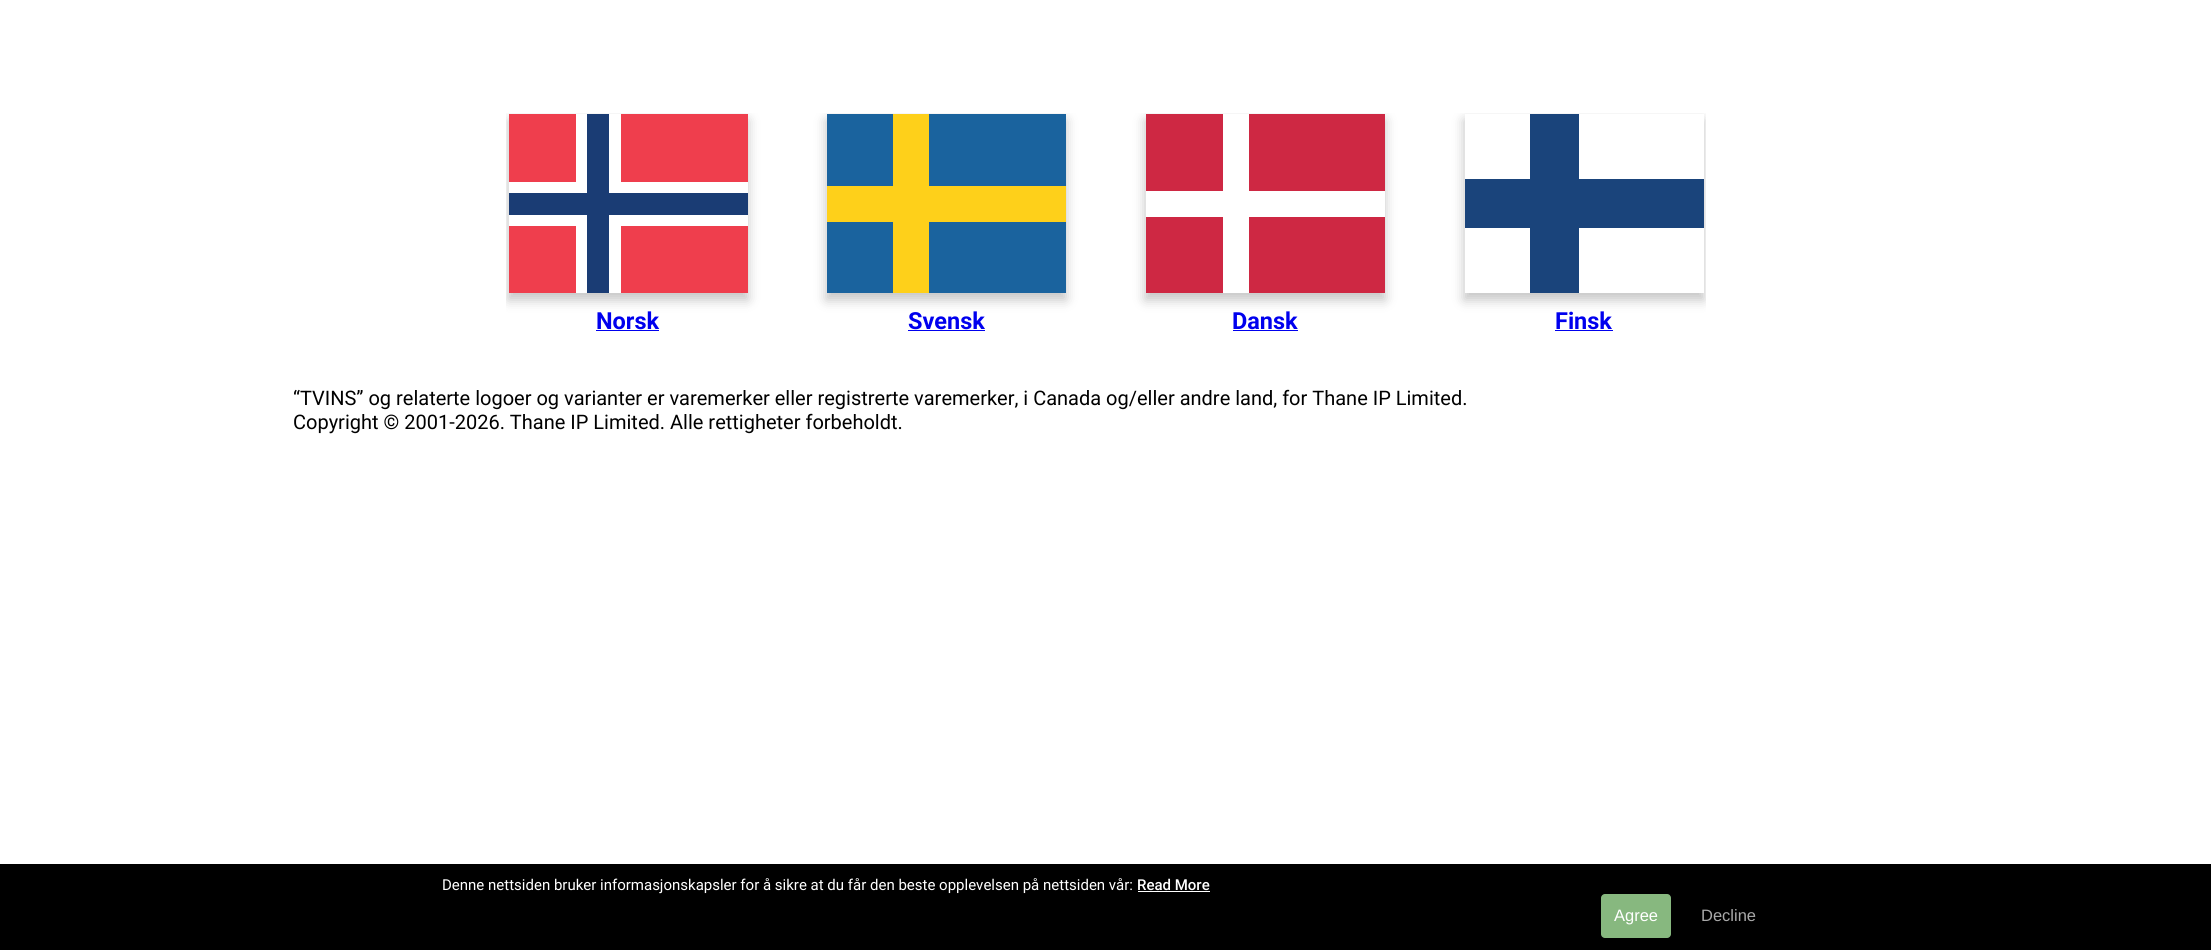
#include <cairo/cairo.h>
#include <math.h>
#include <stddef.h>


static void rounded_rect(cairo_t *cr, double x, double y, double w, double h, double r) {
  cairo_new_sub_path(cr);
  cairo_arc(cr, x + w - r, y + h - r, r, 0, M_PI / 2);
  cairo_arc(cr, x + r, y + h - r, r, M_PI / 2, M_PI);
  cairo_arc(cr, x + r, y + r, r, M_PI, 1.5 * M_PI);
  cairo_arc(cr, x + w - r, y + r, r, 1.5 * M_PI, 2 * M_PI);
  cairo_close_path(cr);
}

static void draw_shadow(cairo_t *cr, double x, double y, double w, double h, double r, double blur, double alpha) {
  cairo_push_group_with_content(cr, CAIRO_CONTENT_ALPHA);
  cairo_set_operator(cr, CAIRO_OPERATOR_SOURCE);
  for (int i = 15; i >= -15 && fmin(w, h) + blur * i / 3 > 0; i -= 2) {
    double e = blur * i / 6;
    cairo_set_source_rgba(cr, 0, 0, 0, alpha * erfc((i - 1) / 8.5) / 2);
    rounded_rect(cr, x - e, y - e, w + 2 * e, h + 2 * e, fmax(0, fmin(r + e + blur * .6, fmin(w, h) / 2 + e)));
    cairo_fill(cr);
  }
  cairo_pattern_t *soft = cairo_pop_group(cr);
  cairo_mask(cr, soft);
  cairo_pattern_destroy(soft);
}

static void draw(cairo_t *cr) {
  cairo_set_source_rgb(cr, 1, 1, 1);
  cairo_paint(cr);
  cairo_save(cr);
  cairo_rectangle(cr, 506, 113, 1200, 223);
  cairo_clip(cr);
  cairo_set_source_rgb(cr, 0, 0, 0);
  draw_shadow(cr, 508, 120, 240, 180, 0, 6, 0.23);
  cairo_restore(cr);
  cairo_set_source_rgb(cr, 239 / 255.0, 62 / 255.0, 77 / 255.0);
  cairo_rectangle(cr, 509, 114, 239, 179);
  cairo_fill(cr);
  cairo_set_source_rgb(cr, 1, 1, 1);
  cairo_rectangle(cr, 576, 114, 45, 179);
  cairo_fill(cr);
  cairo_rectangle(cr, 509, 182, 239, 44);
  cairo_fill(cr);
  cairo_set_source_rgb(cr, 26 / 255.0, 60 / 255.0, 116 / 255.0);
  cairo_rectangle(cr, 587, 114, 22, 179);
  cairo_fill(cr);
  cairo_rectangle(cr, 509, 193, 239, 22);
  cairo_fill(cr);
  cairo_set_source_rgb(cr, 0, 0, 238 / 255.0);
  cairo_rectangle(cr, 596, 330, 63, 1);
  cairo_fill(cr);
  cairo_save(cr);
  cairo_rectangle(cr, 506, 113, 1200, 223);
  cairo_clip(cr);
  cairo_set_source_rgb(cr, 0, 0, 0);
  draw_shadow(cr, 826, 120, 240, 180, 0, 6, 0.23);
  cairo_restore(cr);
  cairo_set_source_rgb(cr, 26 / 255.0, 99 / 255.0, 158 / 255.0);
  cairo_rectangle(cr, 827, 114, 239, 179);
  cairo_fill(cr);
  cairo_set_source_rgb(cr, 254 / 255.0, 208 / 255.0, 26 / 255.0);
  cairo_new_path(cr);
  cairo_move_to(cr, 893, 114);
  cairo_line_to(cr, 893, 186);
  cairo_line_to(cr, 827, 186);
  cairo_line_to(cr, 827, 222);
  cairo_line_to(cr, 893, 222);
  cairo_line_to(cr, 893, 293);
  cairo_line_to(cr, 929, 293);
  cairo_line_to(cr, 929, 222);
  cairo_line_to(cr, 1066, 222);
  cairo_line_to(cr, 1066, 186);
  cairo_line_to(cr, 929, 186);
  cairo_line_to(cr, 929, 114);
  cairo_close_path(cr);
  cairo_fill(cr);
  cairo_set_source_rgb(cr, 0, 0, 238 / 255.0);
  cairo_rectangle(cr, 908, 330, 77, 1);
  cairo_fill(cr);
  cairo_save(cr);
  cairo_rectangle(cr, 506, 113, 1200, 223);
  cairo_clip(cr);
  cairo_set_source_rgb(cr, 0, 0, 0);
  draw_shadow(cr, 1145, 120, 240, 180, 0, 6, 0.23);
  cairo_restore(cr);
  cairo_set_source_rgb(cr, 206 / 255.0, 40 / 255.0, 67 / 255.0);
  cairo_rectangle(cr, 1146, 114, 239, 179);
  cairo_fill(cr);
  cairo_set_source_rgb(cr, 1, 1, 1);
  cairo_rectangle(cr, 1223, 114, 26, 179);
  cairo_fill(cr);
  cairo_rectangle(cr, 1146, 191, 239, 26);
  cairo_fill(cr);
  cairo_set_source_rgb(cr, 0, 0, 238 / 255.0);
  cairo_rectangle(cr, 1233, 330, 65, 1);
  cairo_fill(cr);
  cairo_save(cr);
  cairo_rectangle(cr, 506, 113, 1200, 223);
  cairo_clip(cr);
  cairo_set_source_rgb(cr, 0, 0, 0);
  draw_shadow(cr, 1464, 120, 240, 180, 0, 6, 0.23);
  cairo_restore(cr);
  cairo_set_source_rgb(cr, 1, 1, 1);
  cairo_rectangle(cr, 1465, 114, 239, 179);
  cairo_fill(cr);
  cairo_set_source_rgb(cr, 26 / 255.0, 68 / 255.0, 123 / 255.0);
  cairo_rectangle(cr, 1465, 179, 239, 49);
  cairo_fill(cr);
  cairo_rectangle(cr, 1530, 114, 49, 179);
  cairo_fill(cr);
  cairo_set_source_rgb(cr, 0, 0, 238 / 255.0);
  cairo_rectangle(cr, 1555, 330, 58, 1);
  cairo_fill(cr);
  cairo_set_source_rgb(cr, 0, 0, 0);
  cairo_rectangle(cr, 0, 864, 2211, 86);
  cairo_fill(cr);
  cairo_set_source_rgb(cr, 1, 1, 1);
  cairo_rectangle(cr, 1138, 891, 72, 1);
  cairo_fill(cr);
  cairo_set_source_rgb(cr, 135 / 255.0, 184 / 255.0, 127 / 255.0);
  rounded_rect(cr, 1601, 894, 70, 44, 4);
  cairo_fill(cr);
  cairo_select_font_face(cr, "Roboto", CAIRO_FONT_SLANT_NORMAL, CAIRO_FONT_WEIGHT_BOLD);
  cairo_set_font_size(cr, 23.5);
  cairo_set_source_rgb(cr, 0, 0, 238 / 255.0);
  cairo_move_to(cr, 596, 329);
  cairo_show_text(cr, "Norsk");
  cairo_move_to(cr, 908, 329);
  cairo_show_text(cr, "Svensk");
  cairo_move_to(cr, 1232, 329);
  cairo_show_text(cr, "Dansk");
  cairo_move_to(cr, 1555, 329);
  cairo_show_text(cr, "Finsk");
  cairo_select_font_face(cr, "Roboto", CAIRO_FONT_SLANT_NORMAL, CAIRO_FONT_WEIGHT_NORMAL);
  cairo_set_font_size(cr, 20);
  cairo_set_source_rgb(cr, 0, 0, 0);
  cairo_move_to(cr, 293, 405);
  cairo_show_text(cr, "“TVINS” og relaterte logoer og varianter er varemerker eller registrerte varemerker, i Canada og/eller andre land, for Thane IP Limited.");
  cairo_move_to(cr, 293, 429);
  cairo_show_text(cr, "Copyright © 2001-2026. Thane IP Limited. Alle rettigheter forbeholdt.");
  cairo_set_font_size(cr, 15);
  cairo_set_source_rgb(cr, 1, 1, 1);
  cairo_move_to(cr, 442, 890);
  cairo_show_text(cr, "Denne nettsiden bruker informasjonskapsler for å sikre at du får den beste opplevelsen på nettsiden vår:");
  cairo_select_font_face(cr, "Roboto Medium", CAIRO_FONT_SLANT_NORMAL, CAIRO_FONT_WEIGHT_NORMAL);
  cairo_move_to(cr, 1137, 890);
  cairo_show_text(cr, "Read More");
  cairo_select_font_face(cr, "Liberation Sans", CAIRO_FONT_SLANT_NORMAL, CAIRO_FONT_WEIGHT_NORMAL);
  cairo_set_font_size(cr, 16.5);
  cairo_move_to(cr, 1614, 921);
  cairo_show_text(cr, "Agree");
  cairo_set_source_rgb(cr, 169 / 255.0, 169 / 255.0, 169 / 255.0);
  cairo_move_to(cr, 1701, 921);
  cairo_show_text(cr, "Decline");
}

int main(void) {
  cairo_surface_t *surface = cairo_image_surface_create(CAIRO_FORMAT_RGB24, 2211, 950);
  cairo_t *cr = cairo_create(surface);
  cairo_font_options_t *options = cairo_font_options_create();
  cairo_font_options_set_hint_metrics(options, CAIRO_HINT_METRICS_OFF);
  cairo_font_options_set_hint_style(options, CAIRO_HINT_STYLE_NONE);
  cairo_set_font_options(cr, options);
  cairo_set_miter_limit(cr, 4);
  draw(cr);
  cairo_surface_write_to_png(surface, "out.png");
  cairo_font_options_destroy(options);
  cairo_destroy(cr);
  cairo_surface_destroy(surface);
  return 0;
}
